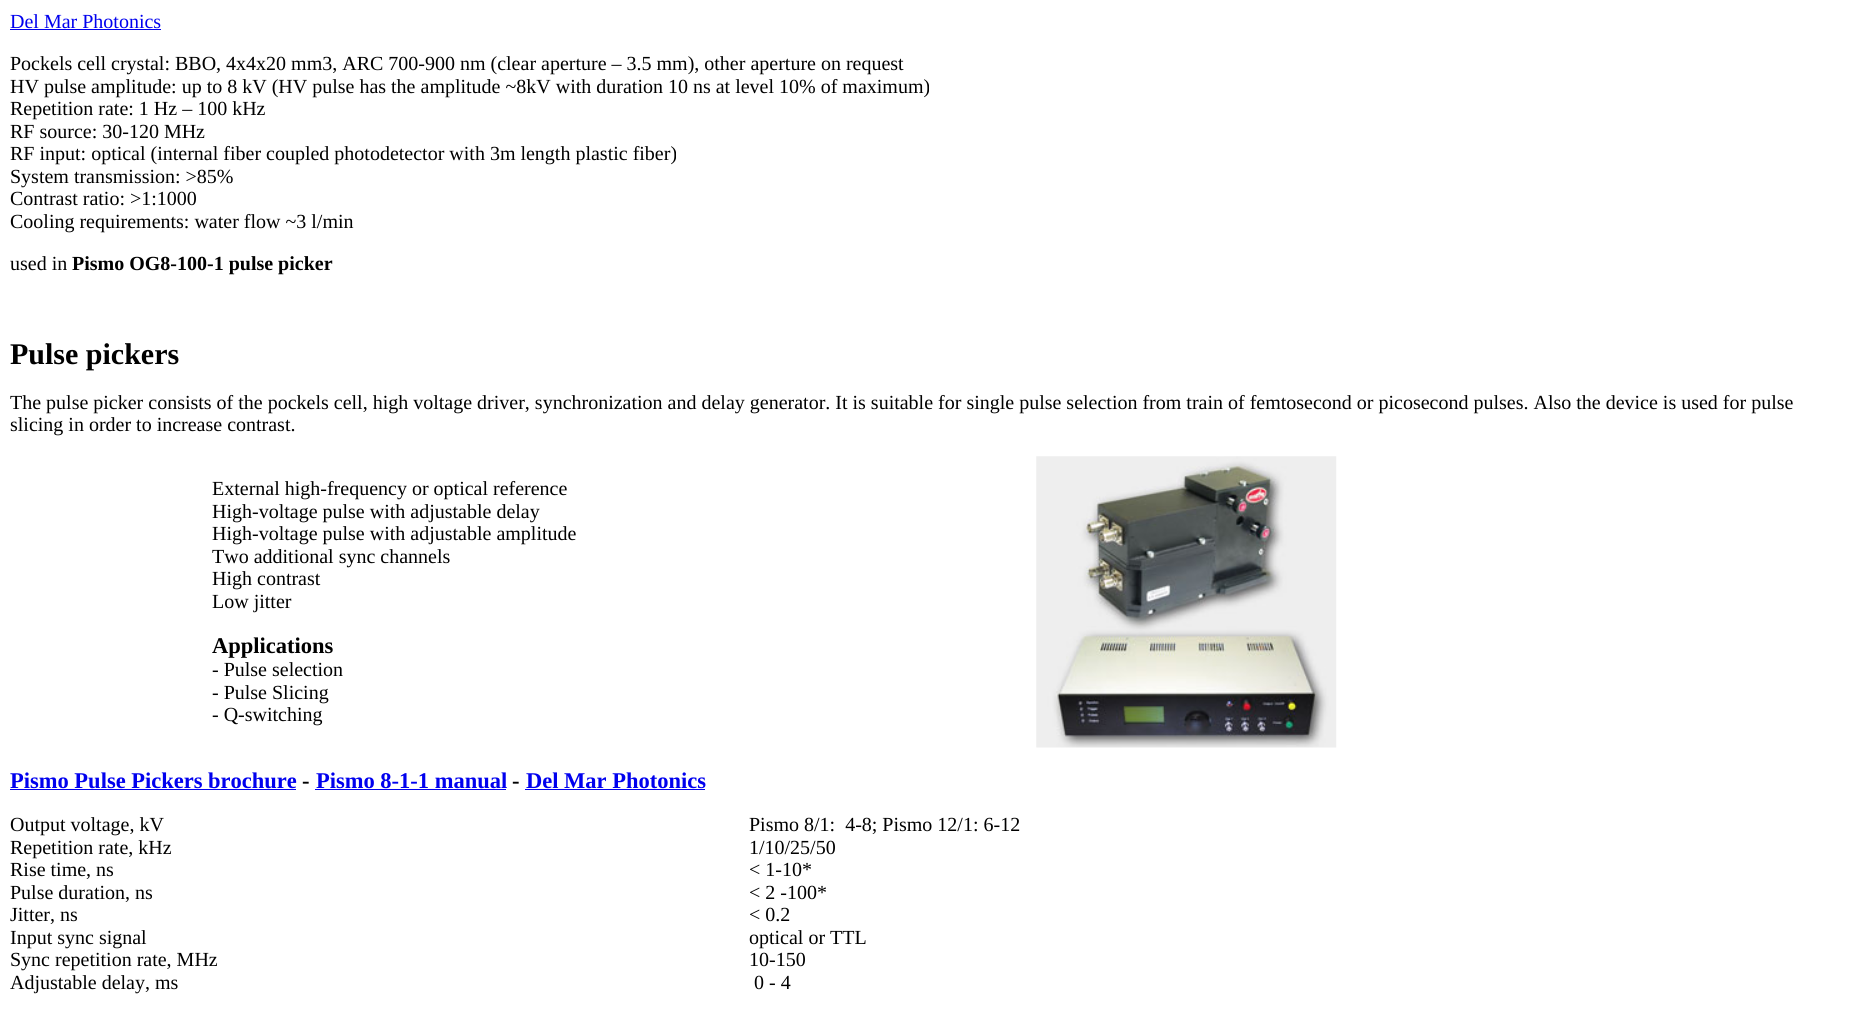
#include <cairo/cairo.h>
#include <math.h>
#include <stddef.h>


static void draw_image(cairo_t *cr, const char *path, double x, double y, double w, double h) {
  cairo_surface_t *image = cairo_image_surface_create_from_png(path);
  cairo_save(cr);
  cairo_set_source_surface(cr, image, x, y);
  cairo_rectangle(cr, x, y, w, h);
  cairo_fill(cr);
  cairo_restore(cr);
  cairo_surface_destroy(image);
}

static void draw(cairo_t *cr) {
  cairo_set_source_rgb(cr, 1, 1, 1);
  cairo_paint(cr);
  cairo_set_source_rgb(cr, 0, 0, 238 / 255.0);
  cairo_rectangle(cr, 10, 29, 151, 1);
  cairo_fill(cr);
  draw_image(cr, "images/1.png", 1036, 456, 301, 292);
  cairo_rectangle(cr, 10, 789, 286, 1);
  cairo_fill(cr);
  cairo_rectangle(cr, 315, 789, 191, 1);
  cairo_fill(cr);
  cairo_rectangle(cr, 525, 789, 180, 1);
  cairo_fill(cr);
  cairo_select_font_face(cr, "Liberation Serif", CAIRO_FONT_SLANT_NORMAL, CAIRO_FONT_WEIGHT_NORMAL);
  cairo_set_font_size(cr, 20);
  cairo_move_to(cr, 10, 28);
  cairo_show_text(cr, "Del Mar Photonics");
  cairo_set_source_rgb(cr, 0, 0, 0);
  cairo_move_to(cr, 10, 70);
  cairo_show_text(cr, "Pockels cell crystal: BBO, 4x4x20 mm3, ARC 700-900 nm (clear aperture – 3.5 mm), other aperture on request");
  cairo_move_to(cr, 10, 93);
  cairo_show_text(cr, "HV pulse amplitude: up to 8 kV (HV pulse has the amplitude ~8kV with duration 10 ns at level 10% of maximum)");
  cairo_move_to(cr, 10, 115);
  cairo_show_text(cr, "Repetition rate: 1 Hz – 100 kHz");
  cairo_move_to(cr, 10, 138);
  cairo_show_text(cr, "RF source: 30-120 MHz");
  cairo_move_to(cr, 10, 160);
  cairo_show_text(cr, "RF input: optical (internal fiber coupled photodetector with 3m length plastic fiber)");
  cairo_move_to(cr, 10, 183);
  cairo_show_text(cr, "System transmission: >85%");
  cairo_move_to(cr, 10, 205);
  cairo_show_text(cr, "Contrast ratio: >1:1000");
  cairo_move_to(cr, 10, 228);
  cairo_show_text(cr, "Cooling requirements: water flow ~3 l/min");
  cairo_move_to(cr, 10, 270);
  cairo_show_text(cr, "used in");
  cairo_select_font_face(cr, "Liberation Serif", CAIRO_FONT_SLANT_NORMAL, CAIRO_FONT_WEIGHT_BOLD);
  cairo_move_to(cr, 72, 270);
  cairo_show_text(cr, "Pismo OG8-100-1 pulse picker");
  cairo_set_font_size(cr, 30);
  cairo_move_to(cr, 10, 364);
  cairo_show_text(cr, "Pulse pickers");
  cairo_select_font_face(cr, "Liberation Serif", CAIRO_FONT_SLANT_NORMAL, CAIRO_FONT_WEIGHT_NORMAL);
  cairo_set_font_size(cr, 20);
  cairo_move_to(cr, 10, 409);
  cairo_show_text(cr, "The pulse picker consists of the pockels cell, high voltage driver, synchronization and delay generator. It is suitable for single pulse selection from train of femtosecond or picosecond pulses. Also the device is used for pulse");
  cairo_move_to(cr, 10, 431);
  cairo_show_text(cr, "slicing in order to increase contrast.");
  cairo_move_to(cr, 212, 495);
  cairo_show_text(cr, "External high-frequency or optical reference");
  cairo_move_to(cr, 212, 518);
  cairo_show_text(cr, "High-voltage pulse with adjustable delay");
  cairo_move_to(cr, 212, 540);
  cairo_show_text(cr, "High-voltage pulse with adjustable amplitude");
  cairo_move_to(cr, 212, 563);
  cairo_show_text(cr, "Two additional sync channels");
  cairo_move_to(cr, 212, 585);
  cairo_show_text(cr, "High contrast");
  cairo_move_to(cr, 212, 608);
  cairo_show_text(cr, "Low jitter");
  cairo_select_font_face(cr, "Liberation Serif", CAIRO_FONT_SLANT_NORMAL, CAIRO_FONT_WEIGHT_BOLD);
  cairo_set_font_size(cr, 22.5);
  cairo_move_to(cr, 212, 653);
  cairo_show_text(cr, "Applications");
  cairo_select_font_face(cr, "Liberation Serif", CAIRO_FONT_SLANT_NORMAL, CAIRO_FONT_WEIGHT_NORMAL);
  cairo_set_font_size(cr, 20);
  cairo_move_to(cr, 212, 676);
  cairo_show_text(cr, "- Pulse selection");
  cairo_move_to(cr, 212, 699);
  cairo_show_text(cr, "- Pulse Slicing");
  cairo_move_to(cr, 212, 721);
  cairo_show_text(cr, "- Q-switching");
  cairo_select_font_face(cr, "Liberation Serif", CAIRO_FONT_SLANT_NORMAL, CAIRO_FONT_WEIGHT_BOLD);
  cairo_set_font_size(cr, 22.5);
  cairo_set_source_rgb(cr, 0, 0, 238 / 255.0);
  cairo_move_to(cr, 10, 788);
  cairo_show_text(cr, "Pismo Pulse Pickers brochure");
  cairo_set_source_rgb(cr, 0, 0, 0);
  cairo_move_to(cr, 302, 788);
  cairo_show_text(cr, "-");
  cairo_set_source_rgb(cr, 0, 0, 238 / 255.0);
  cairo_move_to(cr, 316, 788);
  cairo_show_text(cr, "Pismo 8-1-1 manual");
  cairo_set_source_rgb(cr, 0, 0, 0);
  cairo_move_to(cr, 512, 788);
  cairo_show_text(cr, "-");
  cairo_set_source_rgb(cr, 0, 0, 238 / 255.0);
  cairo_move_to(cr, 526, 788);
  cairo_show_text(cr, "Del Mar Photonics");
  cairo_select_font_face(cr, "Liberation Serif", CAIRO_FONT_SLANT_NORMAL, CAIRO_FONT_WEIGHT_NORMAL);
  cairo_set_font_size(cr, 20);
  cairo_set_source_rgb(cr, 0, 0, 0);
  cairo_move_to(cr, 10, 831);
  cairo_show_text(cr, "Output voltage, kV");
  cairo_move_to(cr, 10, 854);
  cairo_show_text(cr, "Repetition rate, kHz");
  cairo_move_to(cr, 10, 876);
  cairo_show_text(cr, "Rise time, ns");
  cairo_move_to(cr, 10, 899);
  cairo_show_text(cr, "Pulse duration, ns");
  cairo_move_to(cr, 10, 921);
  cairo_show_text(cr, "Jitter, ns");
  cairo_move_to(cr, 10, 944);
  cairo_show_text(cr, "Input sync signal");
  cairo_move_to(cr, 10, 966);
  cairo_show_text(cr, "Sync repetition rate, MHz");
  cairo_move_to(cr, 10, 989);
  cairo_show_text(cr, "Adjustable delay, ms");
  cairo_move_to(cr, 749, 831);
  cairo_show_text(cr, "Pismo 8/1:  4-8; Pismo 12/1: 6-12");
  cairo_move_to(cr, 749, 854);
  cairo_show_text(cr, "1/10/25/50");
  cairo_move_to(cr, 749, 876);
  cairo_show_text(cr, "< 1-10*");
  cairo_move_to(cr, 749, 899);
  cairo_show_text(cr, "< 2 -100*");
  cairo_move_to(cr, 749, 921);
  cairo_show_text(cr, "< 0.2");
  cairo_move_to(cr, 749, 944);
  cairo_show_text(cr, "optical or TTL");
  cairo_move_to(cr, 749, 966);
  cairo_show_text(cr, "10-150");
  cairo_move_to(cr, 754, 989);
  cairo_show_text(cr, "0 - 4");
}

int main(void) {
  cairo_surface_t *surface = cairo_image_surface_create(CAIRO_FORMAT_RGB24, 1852, 1013);
  cairo_t *cr = cairo_create(surface);
  cairo_font_options_t *options = cairo_font_options_create();
  cairo_font_options_set_hint_metrics(options, CAIRO_HINT_METRICS_OFF);
  cairo_font_options_set_hint_style(options, CAIRO_HINT_STYLE_NONE);
  cairo_set_font_options(cr, options);
  cairo_set_miter_limit(cr, 4);
  draw(cr);
  cairo_surface_write_to_png(surface, "out.png");
  cairo_font_options_destroy(options);
  cairo_destroy(cr);
  cairo_surface_destroy(surface);
  return 0;
}
